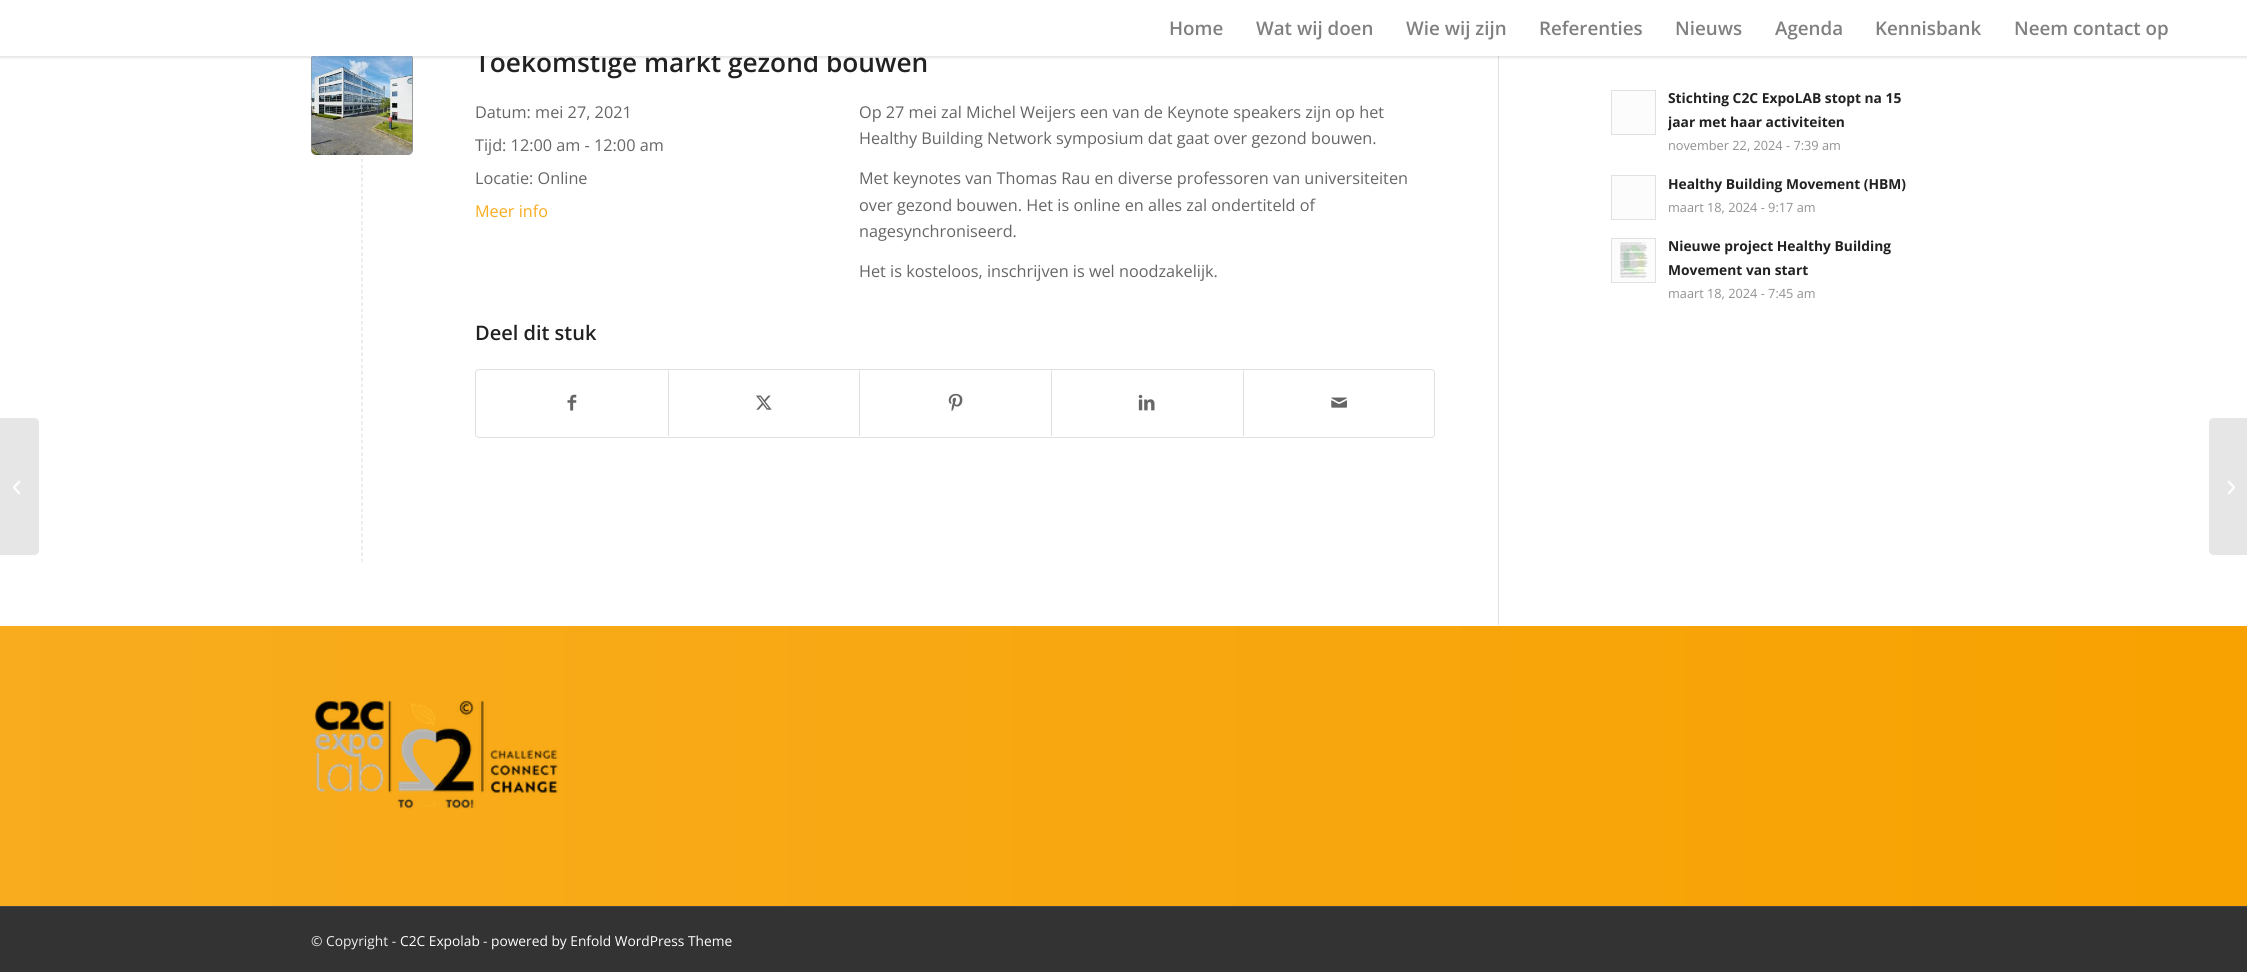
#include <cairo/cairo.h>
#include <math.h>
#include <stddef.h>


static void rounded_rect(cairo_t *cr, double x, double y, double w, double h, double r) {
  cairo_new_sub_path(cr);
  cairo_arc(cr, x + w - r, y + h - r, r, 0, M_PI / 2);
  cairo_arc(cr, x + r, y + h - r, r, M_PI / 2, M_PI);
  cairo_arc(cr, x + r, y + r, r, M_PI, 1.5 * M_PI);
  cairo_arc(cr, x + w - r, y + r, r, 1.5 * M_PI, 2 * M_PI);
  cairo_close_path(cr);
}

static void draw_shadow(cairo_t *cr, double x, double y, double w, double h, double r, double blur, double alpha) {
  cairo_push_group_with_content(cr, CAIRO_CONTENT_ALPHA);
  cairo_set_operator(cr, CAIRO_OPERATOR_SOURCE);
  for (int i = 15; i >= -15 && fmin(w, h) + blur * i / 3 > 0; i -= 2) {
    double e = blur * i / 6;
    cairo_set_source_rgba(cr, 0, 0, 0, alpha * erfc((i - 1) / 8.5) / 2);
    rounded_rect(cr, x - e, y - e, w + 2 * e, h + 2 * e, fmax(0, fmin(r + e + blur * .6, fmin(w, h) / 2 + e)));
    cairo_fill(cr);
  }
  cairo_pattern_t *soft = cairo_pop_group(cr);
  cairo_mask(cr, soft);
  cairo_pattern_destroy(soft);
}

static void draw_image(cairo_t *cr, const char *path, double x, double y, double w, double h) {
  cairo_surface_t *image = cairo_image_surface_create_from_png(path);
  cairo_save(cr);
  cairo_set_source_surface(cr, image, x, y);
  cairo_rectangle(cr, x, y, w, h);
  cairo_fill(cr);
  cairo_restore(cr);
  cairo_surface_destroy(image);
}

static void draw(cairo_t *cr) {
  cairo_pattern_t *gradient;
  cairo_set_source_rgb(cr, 1, 1, 1);
  cairo_paint(cr);
  cairo_set_source_rgb(cr, 225 / 255.0, 225 / 255.0, 225 / 255.0);
  cairo_rectangle(cr, 1498, 56, 1, 569);
  cairo_fill(cr);
  cairo_new_path(cr);
  cairo_move_to(cr, 362, 46);
  cairo_line_to(cr, 362, 562.5);
  cairo_set_line_width(cr, 1.2);
  cairo_set_dash(cr, (double[]){3.75, 2.5}, 2, 0);
  cairo_stroke(cr);
  cairo_set_source_rgb(cr, 145 / 255.0, 145 / 255.0, 145 / 255.0);
  rounded_rect(cr, 311, 54, 102, 101, 5);
  cairo_fill(cr);
  draw_image(cr, "images/7.png", 311, 56, 102, 99);
  cairo_set_source_rgb(cr, 0, 0, 0);
  draw_shadow(cr, -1, -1, 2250, 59, 0, 1, 0.1);
  cairo_set_source_rgb(cr, 230 / 255.0, 230 / 255.0, 230 / 255.0);
  cairo_new_path(cr);
  cairo_move_to(cr, 0, 418);
  cairo_line_to(cr, 34, 418);
  cairo_curve_to(cr, 37, 418, 39, 420, 39, 423);
  cairo_line_to(cr, 39, 550);
  cairo_curve_to(cr, 39, 553, 37, 555, 34, 555);
  cairo_line_to(cr, 0, 555);
  cairo_close_path(cr);
  cairo_fill(cr);
  draw_image(cr, "images/1.png", 13, 480, 7, 15);
  rounded_rect(cr, 475.5, 369.5, 959, 68, 3.5);
  cairo_set_source_rgb(cr, 225 / 255.0, 225 / 255.0, 225 / 255.0);
  cairo_set_line_width(cr, 1);
  cairo_set_dash(cr, NULL, 0, 0);
  cairo_stroke(cr);
  draw_image(cr, "images/2.png", 567, 394, 10, 17);
  cairo_rectangle(cr, 668, 370, 1, 66);
  cairo_fill(cr);
  draw_image(cr, "images/3.png", 756, 395, 16, 15);
  cairo_rectangle(cr, 859, 370, 1, 66);
  cairo_fill(cr);
  draw_image(cr, "images/4.png", 948, 393, 15, 19);
  cairo_rectangle(cr, 1051, 370, 1, 66);
  cairo_fill(cr);
  draw_image(cr, "images/5.png", 1138, 394, 17, 17);
  cairo_rectangle(cr, 1243, 370, 1, 66);
  cairo_fill(cr);
  draw_image(cr, "images/6.png", 1331, 397, 16, 11);
  cairo_set_source_rgb(cr, 252 / 255.0, 252 / 255.0, 252 / 255.0);
  cairo_rectangle(cr, 1611.5, 90.5, 44, 44);
  cairo_fill_preserve(cr);
  cairo_set_source_rgb(cr, 225 / 255.0, 225 / 255.0, 225 / 255.0);
  cairo_stroke(cr);
  cairo_set_source_rgb(cr, 252 / 255.0, 252 / 255.0, 252 / 255.0);
  cairo_rectangle(cr, 1611.5, 175.5, 44, 44);
  cairo_fill_preserve(cr);
  cairo_set_source_rgb(cr, 225 / 255.0, 225 / 255.0, 225 / 255.0);
  cairo_stroke(cr);
  cairo_set_source_rgb(cr, 252 / 255.0, 252 / 255.0, 252 / 255.0);
  cairo_rectangle(cr, 1611.5, 238.5, 44, 44);
  cairo_fill_preserve(cr);
  cairo_set_source_rgb(cr, 225 / 255.0, 225 / 255.0, 225 / 255.0);
  cairo_stroke(cr);
  draw_image(cr, "images/8.png", 1620, 242, 28, 36);
  gradient = cairo_pattern_create_linear(0, 767, 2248, 767);
  cairo_pattern_add_color_stop_rgba(gradient, 0, 248 / 255.0, 172 / 255.0, 30 / 255.0, 1);
  cairo_pattern_add_color_stop_rgba(gradient, 1, 248 / 255.0, 162 / 255.0, 1 / 255.0, 1);
  cairo_set_source(cr, gradient);
  cairo_pattern_destroy(gradient);
  cairo_rectangle(cr, 0, 626, 2247, 280);
  cairo_fill(cr);
  draw_image(cr, "images/9.png", 314, 699, 244, 110);
  cairo_set_source_rgb(cr, 51 / 255.0, 51 / 255.0, 51 / 255.0);
  cairo_rectangle(cr, 0, 907, 2247, 65);
  cairo_fill(cr);
  cairo_set_source_rgb(cr, 68 / 255.0, 68 / 255.0, 68 / 255.0);
  cairo_rectangle(cr, 0, 906, 2247, 1);
  cairo_fill(cr);
  cairo_set_source_rgb(cr, 230 / 255.0, 230 / 255.0, 230 / 255.0);
  cairo_new_path(cr);
  cairo_move_to(cr, 2214, 418);
  cairo_line_to(cr, 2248, 418);
  cairo_line_to(cr, 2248, 555);
  cairo_line_to(cr, 2214, 555);
  cairo_curve_to(cr, 2211, 555, 2209, 553, 2209, 550);
  cairo_line_to(cr, 2209, 423);
  cairo_curve_to(cr, 2209, 420, 2211, 418, 2214, 418);
  cairo_close_path(cr);
  cairo_fill(cr);
  draw_image(cr, "images/10.png", 2228, 480, 7, 15);
  cairo_select_font_face(cr, "Open Sans SemiBold", CAIRO_FONT_SLANT_NORMAL, CAIRO_FONT_WEIGHT_NORMAL);
  cairo_set_font_size(cr, 26.25);
  cairo_set_source_rgb(cr, 34 / 255.0, 34 / 255.0, 34 / 255.0);
  cairo_move_to(cr, 475, 72);
  cairo_show_text(cr, "Toekomstige markt gezond bouwen");
  cairo_set_source_rgb(cr, 1, 1, 1);
  cairo_rectangle(cr, 0, 0, 2247, 56);
  cairo_fill(cr);
  cairo_set_font_size(cr, 18.75);
  cairo_set_source_rgb(cr, 128 / 255.0, 128 / 255.0, 128 / 255.0);
  cairo_move_to(cr, 2014, 35);
  cairo_show_text(cr, "Neem contact op");
  cairo_move_to(cr, 1875, 35);
  cairo_show_text(cr, "Kennisbank");
  cairo_move_to(cr, 1775, 35);
  cairo_show_text(cr, "Agenda");
  cairo_move_to(cr, 1675, 35);
  cairo_show_text(cr, "Nieuws");
  cairo_move_to(cr, 1539, 35);
  cairo_show_text(cr, "Referenties");
  cairo_move_to(cr, 1406, 35);
  cairo_show_text(cr, "Wie wij zijn");
  cairo_move_to(cr, 1256, 35);
  cairo_show_text(cr, "Wat wij doen");
  cairo_move_to(cr, 1169, 35);
  cairo_show_text(cr, "Home");
  cairo_select_font_face(cr, "Open Sans", CAIRO_FONT_SLANT_NORMAL, CAIRO_FONT_WEIGHT_NORMAL);
  cairo_set_font_size(cr, 16.25);
  cairo_set_source_rgb(cr, 102 / 255.0, 102 / 255.0, 102 / 255.0);
  cairo_move_to(cr, 475, 118);
  cairo_show_text(cr, "Datum: mei 27, 2021");
  cairo_move_to(cr, 475, 151);
  cairo_show_text(cr, "Tijd: 12:00 am - 12:00 am");
  cairo_move_to(cr, 475, 184);
  cairo_show_text(cr, "Locatie: Online");
  cairo_set_source_rgb(cr, 248 / 255.0, 172 / 255.0, 30 / 255.0);
  cairo_move_to(cr, 475, 217);
  cairo_show_text(cr, "Meer info");
  cairo_set_source_rgb(cr, 102 / 255.0, 102 / 255.0, 102 / 255.0);
  cairo_move_to(cr, 859, 118);
  cairo_show_text(cr, "Op 27 mei zal Michel Weijers een van de Keynote speakers zijn op het");
  cairo_move_to(cr, 859, 144);
  cairo_show_text(cr, "Healthy Building Network symposium dat gaat over gezond bouwen.");
  cairo_move_to(cr, 859, 184);
  cairo_show_text(cr, "Met keynotes van Thomas Rau en diverse professoren van universiteiten");
  cairo_move_to(cr, 859, 211);
  cairo_show_text(cr, "over gezond bouwen. Het is online en alles zal ondertiteld of");
  cairo_move_to(cr, 859, 237);
  cairo_show_text(cr, "nagesynchroniseerd.");
  cairo_move_to(cr, 859, 277);
  cairo_show_text(cr, "Het is kosteloos, inschrijven is wel noodzakelijk.");
  cairo_select_font_face(cr, "Open Sans SemiBold", CAIRO_FONT_SLANT_NORMAL, CAIRO_FONT_WEIGHT_NORMAL);
  cairo_set_font_size(cr, 20);
  cairo_set_source_rgb(cr, 34 / 255.0, 34 / 255.0, 34 / 255.0);
  cairo_move_to(cr, 475, 340);
  cairo_show_text(cr, "Deel dit stuk");
  cairo_select_font_face(cr, "Open Sans", CAIRO_FONT_SLANT_NORMAL, CAIRO_FONT_WEIGHT_BOLD);
  cairo_set_font_size(cr, 13.8);
  cairo_move_to(cr, 1668, 103);
  cairo_show_text(cr, "Stichting C2C ExpoLAB stopt na 15");
  cairo_save(cr);
  cairo_rectangle(cr, 1668, 88, 243, 70);
  cairo_clip(cr);
  cairo_move_to(cr, 1668, 127);
  cairo_show_text(cr, "jaar met haar activiteiten");
  cairo_restore(cr);
  cairo_select_font_face(cr, "Open Sans", CAIRO_FONT_SLANT_NORMAL, CAIRO_FONT_WEIGHT_NORMAL);
  cairo_set_font_size(cr, 12.75);
  cairo_set_source_rgb(cr, 145 / 255.0, 145 / 255.0, 145 / 255.0);
  cairo_move_to(cr, 1668, 150);
  cairo_show_text(cr, "november 22, 2024 - 7:39 am");
  cairo_select_font_face(cr, "Open Sans", CAIRO_FONT_SLANT_NORMAL, CAIRO_FONT_WEIGHT_BOLD);
  cairo_set_font_size(cr, 13.8);
  cairo_set_source_rgb(cr, 34 / 255.0, 34 / 255.0, 34 / 255.0);
  cairo_move_to(cr, 1668, 189);
  cairo_show_text(cr, "Healthy Building Movement (HBM)");
  cairo_select_font_face(cr, "Open Sans", CAIRO_FONT_SLANT_NORMAL, CAIRO_FONT_WEIGHT_NORMAL);
  cairo_set_font_size(cr, 12.75);
  cairo_set_source_rgb(cr, 145 / 255.0, 145 / 255.0, 145 / 255.0);
  cairo_move_to(cr, 1668, 212);
  cairo_show_text(cr, "maart 18, 2024 - 9:17 am");
  cairo_select_font_face(cr, "Open Sans", CAIRO_FONT_SLANT_NORMAL, CAIRO_FONT_WEIGHT_BOLD);
  cairo_set_font_size(cr, 13.8);
  cairo_set_source_rgb(cr, 34 / 255.0, 34 / 255.0, 34 / 255.0);
  cairo_move_to(cr, 1668, 251);
  cairo_show_text(cr, "Nieuwe project Healthy Building");
  cairo_move_to(cr, 1668, 275);
  cairo_show_text(cr, "Movement van start");
  cairo_select_font_face(cr, "Open Sans", CAIRO_FONT_SLANT_NORMAL, CAIRO_FONT_WEIGHT_NORMAL);
  cairo_set_font_size(cr, 12.75);
  cairo_set_source_rgb(cr, 145 / 255.0, 145 / 255.0, 145 / 255.0);
  cairo_move_to(cr, 1668, 298);
  cairo_show_text(cr, "maart 18, 2024 - 7:45 am");
  cairo_set_font_size(cr, 13.75);
  cairo_set_source_rgb(cr, 238 / 255.0, 238 / 255.0, 238 / 255.0);
  cairo_move_to(cr, 311, 946);
  cairo_show_text(cr, "© Copyright -");
  cairo_set_source_rgb(cr, 1, 1, 1);
  cairo_move_to(cr, 400, 946);
  cairo_show_text(cr, "C2C Expolab");
  cairo_set_source_rgb(cr, 238 / 255.0, 238 / 255.0, 238 / 255.0);
  cairo_move_to(cr, 483, 946);
  cairo_show_text(cr, "-");
  cairo_set_source_rgb(cr, 1, 1, 1);
  cairo_move_to(cr, 491, 946);
  cairo_show_text(cr, "powered by Enfold WordPress Theme");
}

int main(void) {
  cairo_surface_t *surface = cairo_image_surface_create(CAIRO_FORMAT_RGB24, 2247, 972);
  cairo_t *cr = cairo_create(surface);
  cairo_font_options_t *options = cairo_font_options_create();
  cairo_font_options_set_hint_metrics(options, CAIRO_HINT_METRICS_OFF);
  cairo_font_options_set_hint_style(options, CAIRO_HINT_STYLE_NONE);
  cairo_set_font_options(cr, options);
  cairo_set_miter_limit(cr, 4);
  draw(cr);
  cairo_surface_write_to_png(surface, "out.png");
  cairo_font_options_destroy(options);
  cairo_destroy(cr);
  cairo_surface_destroy(surface);
  return 0;
}
